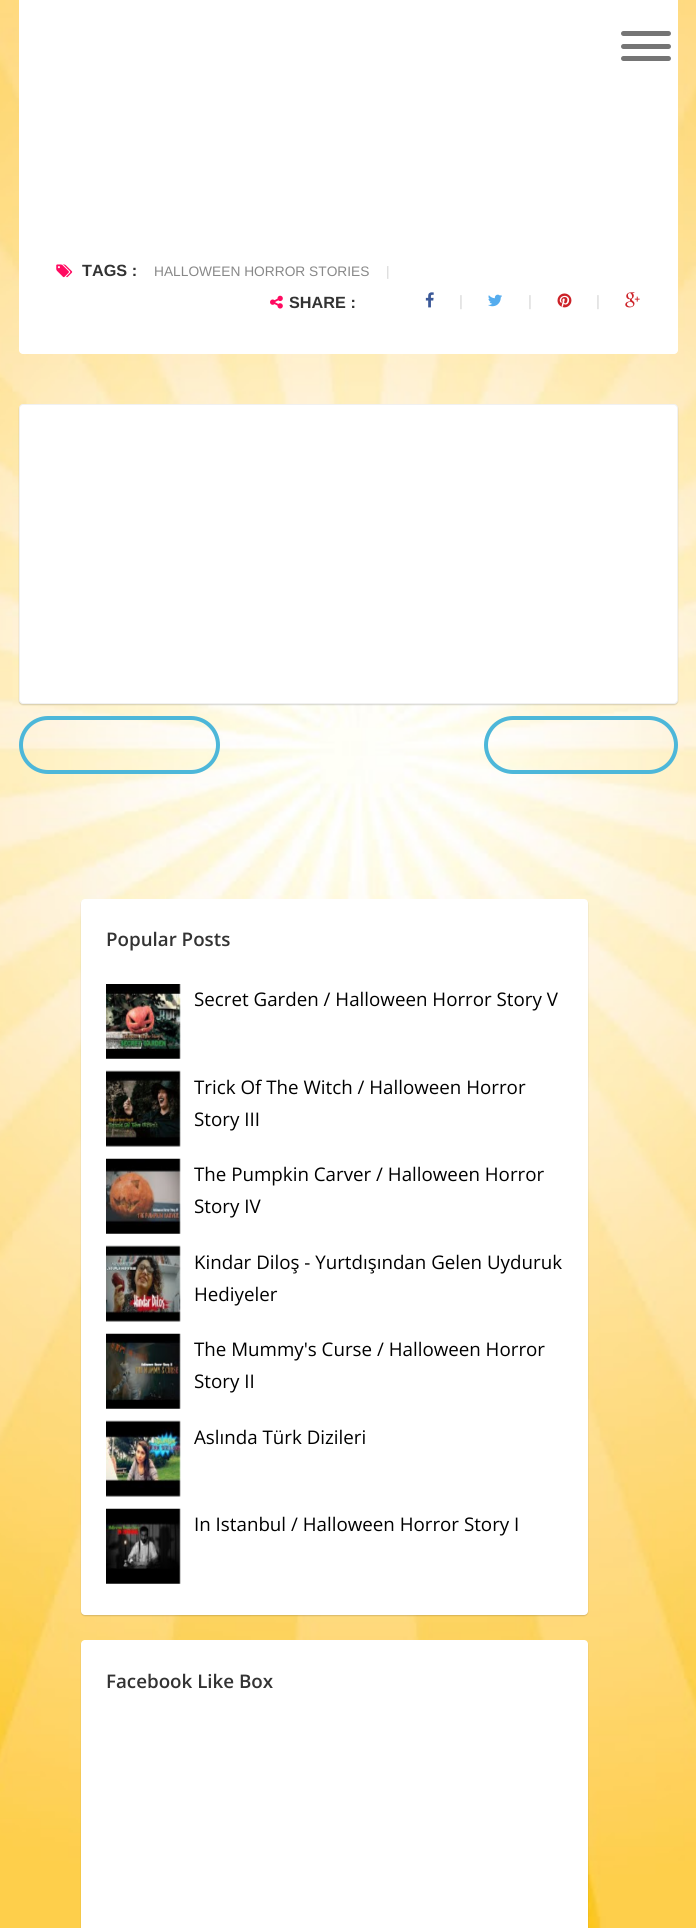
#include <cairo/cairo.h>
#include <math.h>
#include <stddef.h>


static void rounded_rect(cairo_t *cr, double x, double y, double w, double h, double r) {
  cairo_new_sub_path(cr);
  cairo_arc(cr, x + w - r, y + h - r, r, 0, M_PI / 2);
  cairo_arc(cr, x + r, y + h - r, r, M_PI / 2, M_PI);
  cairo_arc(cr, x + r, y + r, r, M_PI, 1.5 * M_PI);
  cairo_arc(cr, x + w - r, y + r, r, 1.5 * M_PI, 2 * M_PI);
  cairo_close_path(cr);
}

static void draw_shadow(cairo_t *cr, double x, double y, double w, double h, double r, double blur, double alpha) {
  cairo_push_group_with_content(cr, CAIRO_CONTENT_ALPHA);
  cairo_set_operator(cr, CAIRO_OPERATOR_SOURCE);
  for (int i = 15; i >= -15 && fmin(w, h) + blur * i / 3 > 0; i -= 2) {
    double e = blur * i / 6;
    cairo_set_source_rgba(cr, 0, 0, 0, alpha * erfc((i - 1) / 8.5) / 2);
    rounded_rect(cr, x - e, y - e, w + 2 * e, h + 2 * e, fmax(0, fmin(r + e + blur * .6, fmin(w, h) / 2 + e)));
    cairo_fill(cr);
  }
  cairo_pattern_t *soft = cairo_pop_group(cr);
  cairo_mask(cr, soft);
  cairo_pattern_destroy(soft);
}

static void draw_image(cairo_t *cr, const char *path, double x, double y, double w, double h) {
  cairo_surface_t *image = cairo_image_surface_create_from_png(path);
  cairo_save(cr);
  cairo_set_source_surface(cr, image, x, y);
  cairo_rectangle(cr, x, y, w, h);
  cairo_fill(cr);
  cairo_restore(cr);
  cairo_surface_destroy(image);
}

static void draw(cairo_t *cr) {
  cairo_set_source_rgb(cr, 1, 1, 1);
  cairo_paint(cr);
  draw_image(cr, "images/1.png", 0, 0, 696, 1928);
  cairo_set_source_rgb(cr, 1, 1, 1);
  rounded_rect(cr, 19, -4, 659, 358, 4);
  cairo_fill(cr);
  cairo_set_source_rgb(cr, 117 / 255.0, 117 / 255.0, 117 / 255.0);
  rounded_rect(cr, 621, 31, 50, 5, 2.5);
  cairo_fill(cr);
  rounded_rect(cr, 621, 44, 50, 5, 2.5);
  cairo_fill(cr);
  rounded_rect(cr, 621, 56, 50, 5, 2.5);
  cairo_fill(cr);
  draw_image(cr, "images/2.png", 56, 264, 17, 14);
  draw_image(cr, "images/3.png", 270, 295, 13, 14);
  draw_image(cr, "images/4.png", 425, 292, 9, 16);
  draw_image(cr, "images/5.png", 488, 294, 14, 13);
  draw_image(cr, "images/6.png", 557, 293, 15, 15);
  draw_image(cr, "images/7.png", 625, 292, 15, 16);
  cairo_set_source_rgb(cr, 0, 0, 0);
  draw_shadow(cr, 19, 405, 659, 300, 4, 0.5, 0.15);
  cairo_set_source_rgb(cr, 1, 1, 1);
  rounded_rect(cr, 19.5, 404.5, 658, 299, 3.5);
  cairo_fill_preserve(cr);
  cairo_set_source_rgb(cr, 241 / 255.0, 241 / 255.0, 241 / 255.0);
  cairo_set_line_width(cr, 1);
  cairo_stroke(cr);
  rounded_rect(cr, 21, 718, 197, 54, 27);
  cairo_set_source_rgb(cr, 77 / 255.0, 183 / 255.0, 217 / 255.0);
  cairo_set_line_width(cr, 4);
  cairo_stroke(cr);
  rounded_rect(cr, 486, 718, 190, 54, 27);
  cairo_stroke(cr);
  cairo_set_source_rgb(cr, 0, 0, 0);
  draw_shadow(cr, 81, 900, 507, 716, 4, 0.5, 0.15);
  cairo_set_source_rgb(cr, 1, 1, 1);
  rounded_rect(cr, 81, 899, 507, 716, 4);
  cairo_fill(cr);
  draw_image(cr, "images/8.png", 106, 984, 75, 75);
  draw_image(cr, "images/9.png", 106, 1070, 75, 77);
  draw_image(cr, "images/10.png", 106, 1158, 75, 76);
  draw_image(cr, "images/11.png", 106, 1245, 75, 77);
  draw_image(cr, "images/12.png", 106, 1333, 75, 76);
  draw_image(cr, "images/13.png", 106, 1420, 75, 77);
  draw_image(cr, "images/14.png", 106, 1508, 75, 76);
  cairo_set_source_rgb(cr, 0, 0, 0);
  draw_shadow(cr, 81, 1641, 507, 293, 4, 0.5, 0.15);
  cairo_set_source_rgb(cr, 1, 1, 1);
  rounded_rect(cr, 81, 1640, 507, 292, 4);
  cairo_fill(cr);
  cairo_select_font_face(cr, "Liberation Sans", CAIRO_FONT_SLANT_NORMAL, CAIRO_FONT_WEIGHT_BOLD);
  cairo_set_font_size(cr, 16.25);
  cairo_set_source_rgb(cr, 51 / 255.0, 51 / 255.0, 51 / 255.0);
  cairo_move_to(cr, 82, 276);
  cairo_show_text(cr, "TAGS :");
  cairo_select_font_face(cr, "Liberation Sans", CAIRO_FONT_SLANT_NORMAL, CAIRO_FONT_WEIGHT_NORMAL);
  cairo_set_font_size(cr, 13.75);
  cairo_set_source_rgb(cr, 136 / 255.0, 136 / 255.0, 136 / 255.0);
  cairo_move_to(cr, 154, 276);
  cairo_show_text(cr, "HALLOWEEN HORROR STORIES");
  cairo_set_source_rgb(cr, 214 / 255.0, 214 / 255.0, 214 / 255.0);
  cairo_move_to(cr, 386, 276);
  cairo_show_text(cr, "|");
  cairo_select_font_face(cr, "Liberation Sans", CAIRO_FONT_SLANT_NORMAL, CAIRO_FONT_WEIGHT_BOLD);
  cairo_set_font_size(cr, 16.25);
  cairo_set_source_rgb(cr, 51 / 255.0, 51 / 255.0, 51 / 255.0);
  cairo_move_to(cr, 289, 308);
  cairo_show_text(cr, "SHARE :");
  cairo_select_font_face(cr, "Liberation Sans", CAIRO_FONT_SLANT_NORMAL, CAIRO_FONT_WEIGHT_NORMAL);
  cairo_set_font_size(cr, 15);
  cairo_set_source_rgb(cr, 214 / 255.0, 214 / 255.0, 214 / 255.0);
  cairo_move_to(cr, 459, 306);
  cairo_show_text(cr, "|");
  cairo_move_to(cr, 528, 306);
  cairo_show_text(cr, "|");
  cairo_move_to(cr, 596, 306);
  cairo_show_text(cr, "|");
  cairo_select_font_face(cr, "Open Sans SemiBold", CAIRO_FONT_SLANT_NORMAL, CAIRO_FONT_WEIGHT_NORMAL);
  cairo_set_font_size(cr, 18.75);
  cairo_set_source_rgb(cr, 51 / 255.0, 51 / 255.0, 51 / 255.0);
  cairo_move_to(cr, 106, 946);
  cairo_show_text(cr, "Popular Posts");
  cairo_select_font_face(cr, "Open Sans", CAIRO_FONT_SLANT_NORMAL, CAIRO_FONT_WEIGHT_NORMAL);
  cairo_set_source_rgb(cr, 0, 0, 0);
  cairo_move_to(cr, 194, 1006);
  cairo_show_text(cr, "Secret Garden / Halloween Horror Story V");
  cairo_move_to(cr, 194, 1094);
  cairo_show_text(cr, "Trick Of The Witch / Halloween Horror");
  cairo_move_to(cr, 194, 1126);
  cairo_show_text(cr, "Story III");
  cairo_move_to(cr, 194, 1181);
  cairo_show_text(cr, "The Pumpkin Carver / Halloween Horror");
  cairo_move_to(cr, 194, 1213);
  cairo_show_text(cr, "Story IV");
  cairo_move_to(cr, 194, 1269);
  cairo_show_text(cr, "Kindar Diloş - Yurtdışından Gelen Uyduruk");
  cairo_move_to(cr, 194, 1301);
  cairo_show_text(cr, "Hediyeler");
  cairo_move_to(cr, 194, 1356);
  cairo_show_text(cr, "The Mummy's Curse / Halloween Horror");
  cairo_move_to(cr, 194, 1388);
  cairo_show_text(cr, "Story II");
  cairo_move_to(cr, 194, 1444);
  cairo_show_text(cr, "Aslında Türk Dizileri");
  cairo_move_to(cr, 194, 1531);
  cairo_show_text(cr, "In Istanbul / Halloween Horror Story I");
  cairo_select_font_face(cr, "Open Sans SemiBold", CAIRO_FONT_SLANT_NORMAL, CAIRO_FONT_WEIGHT_NORMAL);
  cairo_set_source_rgb(cr, 51 / 255.0, 51 / 255.0, 51 / 255.0);
  cairo_move_to(cr, 106, 1688);
  cairo_show_text(cr, "Facebook Like Box");
}

int main(void) {
  cairo_surface_t *surface = cairo_image_surface_create(CAIRO_FORMAT_RGB24, 696, 1928);
  cairo_t *cr = cairo_create(surface);
  cairo_font_options_t *options = cairo_font_options_create();
  cairo_font_options_set_hint_metrics(options, CAIRO_HINT_METRICS_OFF);
  cairo_font_options_set_hint_style(options, CAIRO_HINT_STYLE_NONE);
  cairo_set_font_options(cr, options);
  cairo_set_miter_limit(cr, 4);
  draw(cr);
  cairo_surface_write_to_png(surface, "out.png");
  cairo_font_options_destroy(options);
  cairo_destroy(cr);
  cairo_surface_destroy(surface);
  return 0;
}
